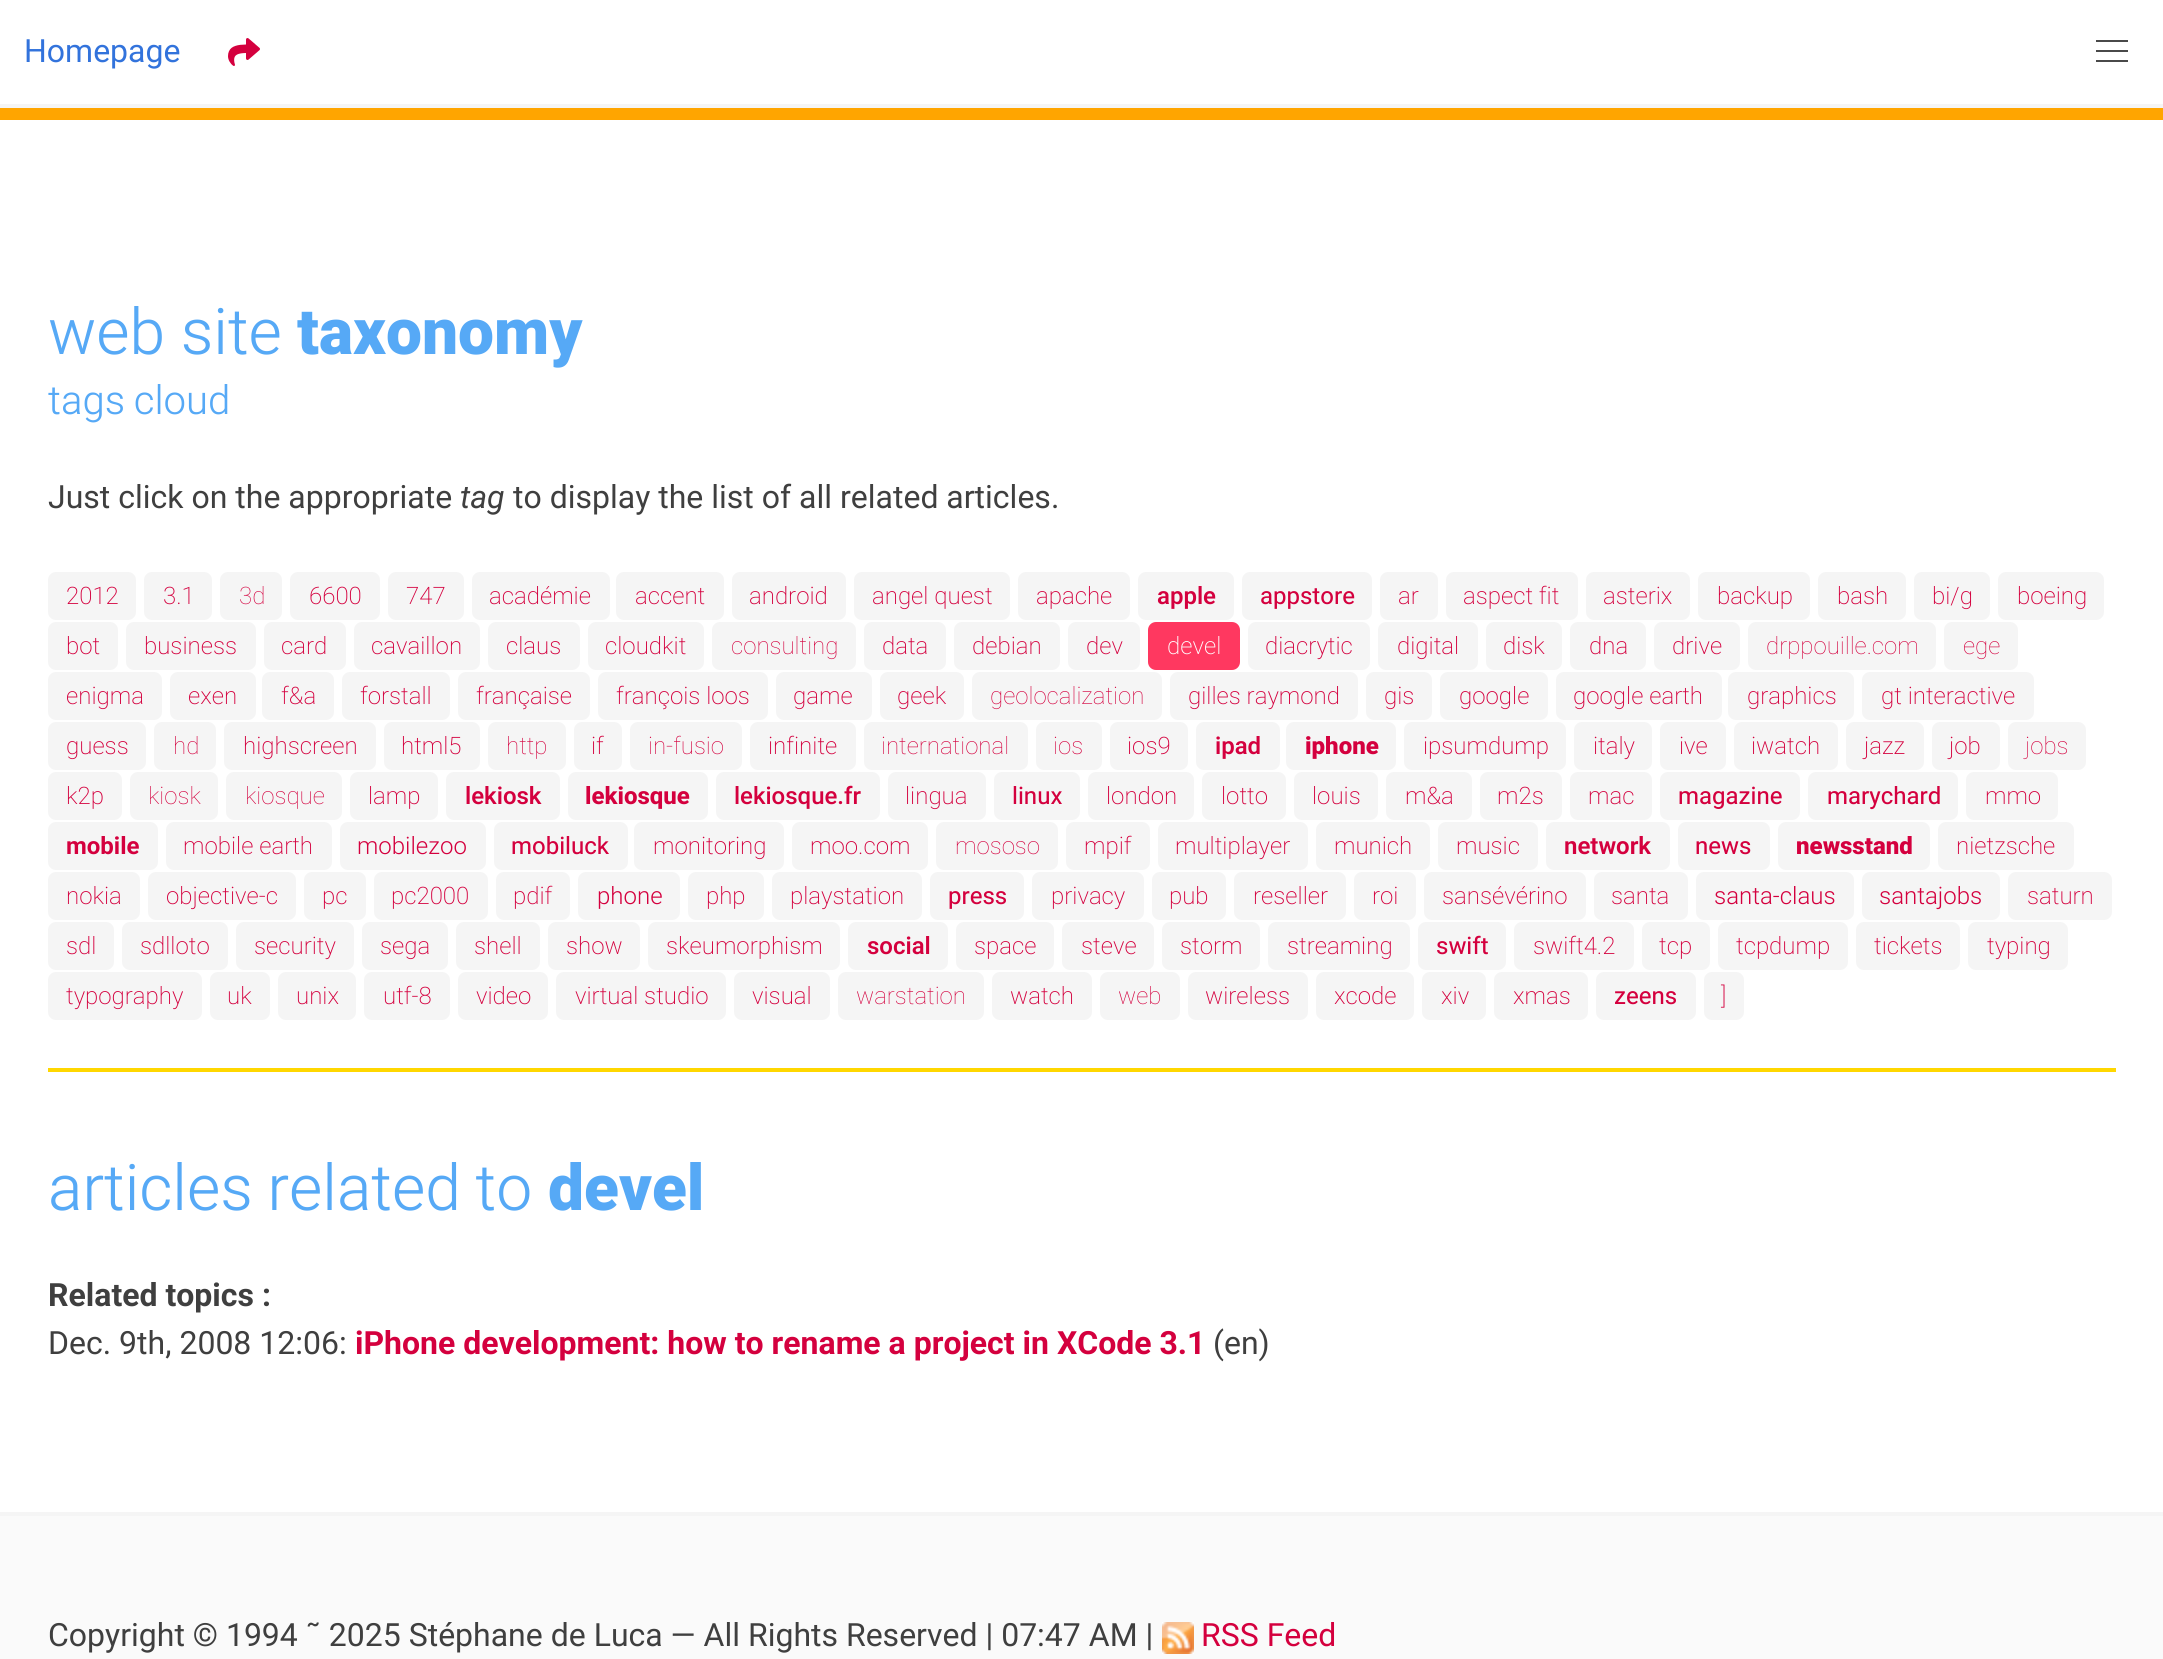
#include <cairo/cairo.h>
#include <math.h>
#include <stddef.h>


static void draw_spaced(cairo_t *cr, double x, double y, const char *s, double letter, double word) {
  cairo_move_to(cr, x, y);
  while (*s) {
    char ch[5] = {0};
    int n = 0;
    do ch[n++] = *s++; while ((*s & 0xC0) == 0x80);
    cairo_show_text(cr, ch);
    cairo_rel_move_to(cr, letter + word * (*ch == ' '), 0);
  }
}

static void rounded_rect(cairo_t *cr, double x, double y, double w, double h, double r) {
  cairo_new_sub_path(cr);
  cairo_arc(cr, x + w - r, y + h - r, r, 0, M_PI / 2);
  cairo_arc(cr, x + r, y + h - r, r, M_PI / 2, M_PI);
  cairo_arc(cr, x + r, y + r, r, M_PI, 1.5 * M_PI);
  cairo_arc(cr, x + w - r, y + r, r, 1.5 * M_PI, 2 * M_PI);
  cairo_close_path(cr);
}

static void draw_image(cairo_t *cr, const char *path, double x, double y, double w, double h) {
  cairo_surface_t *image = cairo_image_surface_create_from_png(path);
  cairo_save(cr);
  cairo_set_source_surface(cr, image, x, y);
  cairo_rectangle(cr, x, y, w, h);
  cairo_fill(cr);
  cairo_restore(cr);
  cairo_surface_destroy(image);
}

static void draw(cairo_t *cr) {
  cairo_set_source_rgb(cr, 1, 1, 1);
  cairo_paint(cr);
  cairo_set_source_rgb(cr, 245 / 255.0, 245 / 255.0, 245 / 255.0);
  cairo_rectangle(cr, 0, 104, 2163, 4);
  cairo_fill(cr);
  draw_image(cr, "images/1.png", 228, 38, 32, 28);
  cairo_set_source_rgb(cr, 74 / 255.0, 74 / 255.0, 74 / 255.0);
  cairo_rectangle(cr, 2096, 40, 32, 2);
  cairo_fill(cr);
  cairo_rectangle(cr, 2096, 50, 32, 2);
  cairo_fill(cr);
  cairo_rectangle(cr, 2096, 60, 32, 2);
  cairo_fill(cr);
  cairo_set_source_rgb(cr, 1, 165 / 255.0, 0);
  cairo_rectangle(cr, 0, 108, 2163, 12);
  cairo_fill(cr);
  cairo_set_source_rgb(cr, 245 / 255.0, 245 / 255.0, 245 / 255.0);
  rounded_rect(cr, 48, 572, 88, 48, 8);
  cairo_fill(cr);
  rounded_rect(cr, 144, 572, 68, 48, 8);
  cairo_fill(cr);
  rounded_rect(cr, 220, 572, 62, 48, 8);
  cairo_fill(cr);
  rounded_rect(cr, 290, 572, 90, 48, 8);
  cairo_fill(cr);
  rounded_rect(cr, 388, 572, 76, 48, 8);
  cairo_fill(cr);
  rounded_rect(cr, 472, 572, 138, 48, 8);
  cairo_fill(cr);
  rounded_rect(cr, 616, 572, 108, 48, 8);
  cairo_fill(cr);
  rounded_rect(cr, 732, 572, 114, 48, 8);
  cairo_fill(cr);
  rounded_rect(cr, 854, 572, 156, 48, 8);
  cairo_fill(cr);
  rounded_rect(cr, 1018, 572, 112, 48, 8);
  cairo_fill(cr);
  rounded_rect(cr, 1138, 572, 96, 48, 8);
  cairo_fill(cr);
  rounded_rect(cr, 1242, 572, 130, 48, 8);
  cairo_fill(cr);
  rounded_rect(cr, 1380, 572, 58, 48, 8);
  cairo_fill(cr);
  rounded_rect(cr, 1446, 572, 132, 48, 8);
  cairo_fill(cr);
  rounded_rect(cr, 1586, 572, 104, 48, 8);
  cairo_fill(cr);
  rounded_rect(cr, 1698, 572, 112, 48, 8);
  cairo_fill(cr);
  rounded_rect(cr, 1818, 572, 88, 48, 8);
  cairo_fill(cr);
  rounded_rect(cr, 1914, 572, 76, 48, 8);
  cairo_fill(cr);
  rounded_rect(cr, 1998, 572, 106, 48, 8);
  cairo_fill(cr);
  rounded_rect(cr, 48, 622, 70, 48, 8);
  cairo_fill(cr);
  rounded_rect(cr, 126, 622, 130, 48, 8);
  cairo_fill(cr);
  rounded_rect(cr, 264, 622, 82, 48, 8);
  cairo_fill(cr);
  rounded_rect(cr, 354, 622, 126, 48, 8);
  cairo_fill(cr);
  rounded_rect(cr, 488, 622, 92, 48, 8);
  cairo_fill(cr);
  rounded_rect(cr, 588, 622, 116, 48, 8);
  cairo_fill(cr);
  rounded_rect(cr, 712, 622, 144, 48, 8);
  cairo_fill(cr);
  rounded_rect(cr, 864, 622, 82, 48, 8);
  cairo_fill(cr);
  rounded_rect(cr, 954, 622, 106, 48, 8);
  cairo_fill(cr);
  rounded_rect(cr, 1068, 622, 72, 48, 8);
  cairo_fill(cr);
  cairo_set_source_rgb(cr, 1, 56 / 255.0, 96 / 255.0);
  rounded_rect(cr, 1148, 622, 92, 48, 8);
  cairo_fill(cr);
  cairo_set_source_rgb(cr, 245 / 255.0, 245 / 255.0, 245 / 255.0);
  rounded_rect(cr, 1248, 622, 122, 48, 8);
  cairo_fill(cr);
  rounded_rect(cr, 1378, 622, 100, 48, 8);
  cairo_fill(cr);
  rounded_rect(cr, 1486, 622, 76, 48, 8);
  cairo_fill(cr);
  rounded_rect(cr, 1570, 622, 76, 48, 8);
  cairo_fill(cr);
  rounded_rect(cr, 1654, 622, 86, 48, 8);
  cairo_fill(cr);
  rounded_rect(cr, 1748, 622, 188, 48, 8);
  cairo_fill(cr);
  rounded_rect(cr, 1944, 622, 74, 48, 8);
  cairo_fill(cr);
  rounded_rect(cr, 48, 672, 114, 48, 8);
  cairo_fill(cr);
  rounded_rect(cr, 170, 672, 86, 48, 8);
  cairo_fill(cr);
  rounded_rect(cr, 262, 672, 72, 48, 8);
  cairo_fill(cr);
  rounded_rect(cr, 342, 672, 108, 48, 8);
  cairo_fill(cr);
  rounded_rect(cr, 458, 672, 132, 48, 8);
  cairo_fill(cr);
  rounded_rect(cr, 598, 672, 170, 48, 8);
  cairo_fill(cr);
  rounded_rect(cr, 776, 672, 96, 48, 8);
  cairo_fill(cr);
  rounded_rect(cr, 880, 672, 84, 48, 8);
  cairo_fill(cr);
  rounded_rect(cr, 972, 672, 190, 48, 8);
  cairo_fill(cr);
  rounded_rect(cr, 1170, 672, 188, 48, 8);
  cairo_fill(cr);
  rounded_rect(cr, 1366, 672, 66, 48, 8);
  cairo_fill(cr);
  rounded_rect(cr, 1440, 672, 108, 48, 8);
  cairo_fill(cr);
  rounded_rect(cr, 1556, 672, 166, 48, 8);
  cairo_fill(cr);
  rounded_rect(cr, 1728, 672, 126, 48, 8);
  cairo_fill(cr);
  rounded_rect(cr, 1862, 672, 172, 48, 8);
  cairo_fill(cr);
  rounded_rect(cr, 48, 722, 98, 48, 8);
  cairo_fill(cr);
  rounded_rect(cr, 154, 722, 62, 48, 8);
  cairo_fill(cr);
  rounded_rect(cr, 224, 722, 152, 48, 8);
  cairo_fill(cr);
  rounded_rect(cr, 384, 722, 96, 48, 8);
  cairo_fill(cr);
  rounded_rect(cr, 488, 722, 78, 48, 8);
  cairo_fill(cr);
  rounded_rect(cr, 574, 722, 48, 48, 8);
  cairo_fill(cr);
  rounded_rect(cr, 630, 722, 112, 48, 8);
  cairo_fill(cr);
  rounded_rect(cr, 750, 722, 106, 48, 8);
  cairo_fill(cr);
  rounded_rect(cr, 864, 722, 164, 48, 8);
  cairo_fill(cr);
  rounded_rect(cr, 1036, 722, 66, 48, 8);
  cairo_fill(cr);
  rounded_rect(cr, 1110, 722, 78, 48, 8);
  cairo_fill(cr);
  rounded_rect(cr, 1196, 722, 84, 48, 8);
  cairo_fill(cr);
  rounded_rect(cr, 1286, 722, 110, 48, 8);
  cairo_fill(cr);
  rounded_rect(cr, 1404, 722, 162, 48, 8);
  cairo_fill(cr);
  rounded_rect(cr, 1574, 722, 78, 48, 8);
  cairo_fill(cr);
  rounded_rect(cr, 1660, 722, 66, 48, 8);
  cairo_fill(cr);
  rounded_rect(cr, 1734, 722, 104, 48, 8);
  cairo_fill(cr);
  rounded_rect(cr, 1846, 722, 78, 48, 8);
  cairo_fill(cr);
  rounded_rect(cr, 1932, 722, 68, 48, 8);
  cairo_fill(cr);
  rounded_rect(cr, 2008, 722, 78, 48, 8);
  cairo_fill(cr);
  rounded_rect(cr, 48, 772, 74, 48, 8);
  cairo_fill(cr);
  rounded_rect(cr, 130, 772, 88, 48, 8);
  cairo_fill(cr);
  rounded_rect(cr, 226, 772, 116, 48, 8);
  cairo_fill(cr);
  rounded_rect(cr, 350, 772, 88, 48, 8);
  cairo_fill(cr);
  rounded_rect(cr, 446, 772, 114, 48, 8);
  cairo_fill(cr);
  rounded_rect(cr, 568, 772, 140, 48, 8);
  cairo_fill(cr);
  rounded_rect(cr, 716, 772, 164, 48, 8);
  cairo_fill(cr);
  rounded_rect(cr, 888, 772, 98, 48, 8);
  cairo_fill(cr);
  rounded_rect(cr, 994, 772, 86, 48, 8);
  cairo_fill(cr);
  rounded_rect(cr, 1088, 772, 106, 48, 8);
  cairo_fill(cr);
  rounded_rect(cr, 1202, 772, 84, 48, 8);
  cairo_fill(cr);
  rounded_rect(cr, 1294, 772, 84, 48, 8);
  cairo_fill(cr);
  rounded_rect(cr, 1386, 772, 86, 48, 8);
  cairo_fill(cr);
  rounded_rect(cr, 1480, 772, 82, 48, 8);
  cairo_fill(cr);
  rounded_rect(cr, 1570, 772, 82, 48, 8);
  cairo_fill(cr);
  rounded_rect(cr, 1660, 772, 140, 48, 8);
  cairo_fill(cr);
  rounded_rect(cr, 1808, 772, 150, 48, 8);
  cairo_fill(cr);
  rounded_rect(cr, 1966, 772, 92, 48, 8);
  cairo_fill(cr);
  rounded_rect(cr, 48, 822, 110, 48, 8);
  cairo_fill(cr);
  rounded_rect(cr, 166, 822, 166, 48, 8);
  cairo_fill(cr);
  rounded_rect(cr, 340, 822, 146, 48, 8);
  cairo_fill(cr);
  rounded_rect(cr, 494, 822, 134, 48, 8);
  cairo_fill(cr);
  rounded_rect(cr, 634, 822, 150, 48, 8);
  cairo_fill(cr);
  rounded_rect(cr, 792, 822, 136, 48, 8);
  cairo_fill(cr);
  rounded_rect(cr, 936, 822, 122, 48, 8);
  cairo_fill(cr);
  rounded_rect(cr, 1066, 822, 84, 48, 8);
  cairo_fill(cr);
  rounded_rect(cr, 1158, 822, 150, 48, 8);
  cairo_fill(cr);
  rounded_rect(cr, 1316, 822, 114, 48, 8);
  cairo_fill(cr);
  rounded_rect(cr, 1438, 822, 100, 48, 8);
  cairo_fill(cr);
  rounded_rect(cr, 1546, 822, 124, 48, 8);
  cairo_fill(cr);
  rounded_rect(cr, 1678, 822, 92, 48, 8);
  cairo_fill(cr);
  rounded_rect(cr, 1778, 822, 152, 48, 8);
  cairo_fill(cr);
  rounded_rect(cr, 1938, 822, 136, 48, 8);
  cairo_fill(cr);
  rounded_rect(cr, 48, 872, 92, 48, 8);
  cairo_fill(cr);
  rounded_rect(cr, 148, 872, 148, 48, 8);
  cairo_fill(cr);
  rounded_rect(cr, 304, 872, 62, 48, 8);
  cairo_fill(cr);
  rounded_rect(cr, 374, 872, 114, 48, 8);
  cairo_fill(cr);
  rounded_rect(cr, 496, 872, 74, 48, 8);
  cairo_fill(cr);
  rounded_rect(cr, 578, 872, 102, 48, 8);
  cairo_fill(cr);
  rounded_rect(cr, 688, 872, 76, 48, 8);
  cairo_fill(cr);
  rounded_rect(cr, 772, 872, 150, 48, 8);
  cairo_fill(cr);
  rounded_rect(cr, 930, 872, 94, 48, 8);
  cairo_fill(cr);
  rounded_rect(cr, 1032, 872, 112, 48, 8);
  cairo_fill(cr);
  rounded_rect(cr, 1152, 872, 74, 48, 8);
  cairo_fill(cr);
  rounded_rect(cr, 1234, 872, 112, 48, 8);
  cairo_fill(cr);
  rounded_rect(cr, 1354, 872, 62, 48, 8);
  cairo_fill(cr);
  rounded_rect(cr, 1424, 872, 162, 48, 8);
  cairo_fill(cr);
  rounded_rect(cr, 1594, 872, 94, 48, 8);
  cairo_fill(cr);
  rounded_rect(cr, 1696, 872, 158, 48, 8);
  cairo_fill(cr);
  rounded_rect(cr, 1862, 872, 138, 48, 8);
  cairo_fill(cr);
  rounded_rect(cr, 2008, 872, 104, 48, 8);
  cairo_fill(cr);
  rounded_rect(cr, 48, 922, 66, 48, 8);
  cairo_fill(cr);
  rounded_rect(cr, 122, 922, 106, 48, 8);
  cairo_fill(cr);
  rounded_rect(cr, 236, 922, 118, 48, 8);
  cairo_fill(cr);
  rounded_rect(cr, 362, 922, 86, 48, 8);
  cairo_fill(cr);
  rounded_rect(cr, 456, 922, 84, 48, 8);
  cairo_fill(cr);
  rounded_rect(cr, 548, 922, 92, 48, 8);
  cairo_fill(cr);
  rounded_rect(cr, 648, 922, 192, 48, 8);
  cairo_fill(cr);
  rounded_rect(cr, 848, 922, 100, 48, 8);
  cairo_fill(cr);
  rounded_rect(cr, 956, 922, 98, 48, 8);
  cairo_fill(cr);
  rounded_rect(cr, 1062, 922, 92, 48, 8);
  cairo_fill(cr);
  rounded_rect(cr, 1162, 922, 98, 48, 8);
  cairo_fill(cr);
  rounded_rect(cr, 1268, 922, 142, 48, 8);
  cairo_fill(cr);
  rounded_rect(cr, 1418, 922, 88, 48, 8);
  cairo_fill(cr);
  rounded_rect(cr, 1514, 922, 120, 48, 8);
  cairo_fill(cr);
  rounded_rect(cr, 1642, 922, 68, 48, 8);
  cairo_fill(cr);
  rounded_rect(cr, 1718, 922, 130, 48, 8);
  cairo_fill(cr);
  rounded_rect(cr, 1856, 922, 104, 48, 8);
  cairo_fill(cr);
  rounded_rect(cr, 1968, 922, 100, 48, 8);
  cairo_fill(cr);
  rounded_rect(cr, 48, 972, 154, 48, 8);
  cairo_fill(cr);
  rounded_rect(cr, 210, 972, 60, 48, 8);
  cairo_fill(cr);
  rounded_rect(cr, 278, 972, 78, 48, 8);
  cairo_fill(cr);
  rounded_rect(cr, 364, 972, 86, 48, 8);
  cairo_fill(cr);
  rounded_rect(cr, 458, 972, 90, 48, 8);
  cairo_fill(cr);
  rounded_rect(cr, 556, 972, 170, 48, 8);
  cairo_fill(cr);
  rounded_rect(cr, 734, 972, 96, 48, 8);
  cairo_fill(cr);
  rounded_rect(cr, 838, 972, 146, 48, 8);
  cairo_fill(cr);
  rounded_rect(cr, 992, 972, 100, 48, 8);
  cairo_fill(cr);
  rounded_rect(cr, 1100, 972, 80, 48, 8);
  cairo_fill(cr);
  rounded_rect(cr, 1188, 972, 120, 48, 8);
  cairo_fill(cr);
  rounded_rect(cr, 1316, 972, 98, 48, 8);
  cairo_fill(cr);
  rounded_rect(cr, 1422, 972, 64, 48, 8);
  cairo_fill(cr);
  rounded_rect(cr, 1494, 972, 94, 48, 8);
  cairo_fill(cr);
  rounded_rect(cr, 1596, 972, 100, 48, 8);
  cairo_fill(cr);
  rounded_rect(cr, 1704, 972, 40, 48, 8);
  cairo_fill(cr);
  cairo_set_source_rgb(cr, 1, 215 / 255.0, 0);
  cairo_rectangle(cr, 48, 1068, 2068, 4);
  cairo_fill(cr);
  cairo_set_source_rgb(cr, 245 / 255.0, 245 / 255.0, 245 / 255.0);
  cairo_rectangle(cr, 0, 1512, 2163, 4);
  cairo_fill(cr);
  cairo_set_source_rgb(cr, 250 / 255.0, 250 / 255.0, 250 / 255.0);
  cairo_rectangle(cr, 0, 1516, 2163, 143);
  cairo_fill(cr);
  draw_image(cr, "images/2.png", 1162, 1622, 32, 32);
  cairo_select_font_face(cr, "Roboto", CAIRO_FONT_SLANT_NORMAL, CAIRO_FONT_WEIGHT_NORMAL);
  cairo_set_font_size(cr, 32);
  cairo_set_source_rgb(cr, 50 / 255.0, 115 / 255.0, 220 / 255.0);
  cairo_move_to(cr, 24, 62);
  cairo_show_text(cr, "Homepage");
  cairo_select_font_face(cr, "Roboto Light", CAIRO_FONT_SLANT_NORMAL, CAIRO_FONT_WEIGHT_NORMAL);
  cairo_set_font_size(cr, 64);
  cairo_set_source_rgb(cr, 86 / 255.0, 169 / 255.0, 246 / 255.0);
  cairo_move_to(cr, 48, 354);
  cairo_show_text(cr, "web site");
  cairo_select_font_face(cr, "Roboto Black", CAIRO_FONT_SLANT_NORMAL, CAIRO_FONT_WEIGHT_NORMAL);
  cairo_move_to(cr, 297, 354);
  cairo_show_text(cr, "taxonomy");
  cairo_select_font_face(cr, "Roboto Light", CAIRO_FONT_SLANT_NORMAL, CAIRO_FONT_WEIGHT_NORMAL);
  cairo_set_font_size(cr, 40);
  draw_spaced(cr, 48, 414, "tags cloud", 0, -1);
  cairo_select_font_face(cr, "Roboto", CAIRO_FONT_SLANT_NORMAL, CAIRO_FONT_WEIGHT_NORMAL);
  cairo_set_font_size(cr, 32);
  cairo_set_source_rgb(cr, 63 / 255.0, 63 / 255.0, 63 / 255.0);
  cairo_move_to(cr, 48, 508);
  cairo_show_text(cr, "Just click on the appropriate");
  cairo_select_font_face(cr, "Roboto", CAIRO_FONT_SLANT_ITALIC, CAIRO_FONT_WEIGHT_NORMAL);
  cairo_move_to(cr, 460, 508);
  cairo_show_text(cr, "tag");
  cairo_select_font_face(cr, "Roboto", CAIRO_FONT_SLANT_NORMAL, CAIRO_FONT_WEIGHT_NORMAL);
  cairo_move_to(cr, 513, 508);
  cairo_show_text(cr, "to display the list of all related articles.");
  cairo_select_font_face(cr, "Roboto ExtraLight", CAIRO_FONT_SLANT_NORMAL, CAIRO_FONT_WEIGHT_NORMAL);
  cairo_set_font_size(cr, 24);
  cairo_set_source_rgb(cr, 212 / 255.0, 0, 62 / 255.0);
  cairo_move_to(cr, 66, 604);
  cairo_show_text(cr, "2012");
  cairo_move_to(cr, 163, 604);
  cairo_show_text(cr, "3.1");
  cairo_select_font_face(cr, "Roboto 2 ExtraLight", CAIRO_FONT_SLANT_NORMAL, CAIRO_FONT_WEIGHT_NORMAL);
  cairo_move_to(cr, 239, 604);
  cairo_show_text(cr, "3d");
  cairo_select_font_face(cr, "Roboto ExtraLight", CAIRO_FONT_SLANT_NORMAL, CAIRO_FONT_WEIGHT_NORMAL);
  cairo_move_to(cr, 309, 604);
  cairo_show_text(cr, "6600");
  cairo_move_to(cr, 406, 604);
  cairo_show_text(cr, "747");
  cairo_move_to(cr, 489, 604);
  cairo_show_text(cr, "académie");
  cairo_move_to(cr, 635, 604);
  cairo_show_text(cr, "accent");
  cairo_move_to(cr, 749, 604);
  cairo_show_text(cr, "android");
  cairo_move_to(cr, 872, 604);
  cairo_show_text(cr, "angel quest");
  cairo_move_to(cr, 1036, 604);
  cairo_show_text(cr, "apache");
  cairo_select_font_face(cr, "Roboto SemiBold", CAIRO_FONT_SLANT_NORMAL, CAIRO_FONT_WEIGHT_NORMAL);
  cairo_move_to(cr, 1157, 604);
  cairo_show_text(cr, "apple");
  cairo_select_font_face(cr, "Roboto 2", CAIRO_FONT_SLANT_NORMAL, CAIRO_FONT_WEIGHT_NORMAL);
  cairo_move_to(cr, 1260, 604);
  cairo_show_text(cr, "appstore");
  cairo_select_font_face(cr, "Roboto ExtraLight", CAIRO_FONT_SLANT_NORMAL, CAIRO_FONT_WEIGHT_NORMAL);
  cairo_move_to(cr, 1398, 604);
  cairo_show_text(cr, "ar");
  cairo_move_to(cr, 1463, 604);
  cairo_show_text(cr, "aspect fit");
  cairo_move_to(cr, 1603, 604);
  cairo_show_text(cr, "asterix");
  cairo_move_to(cr, 1717, 604);
  cairo_show_text(cr, "backup");
  cairo_move_to(cr, 1837, 604);
  cairo_show_text(cr, "bash");
  cairo_move_to(cr, 1932, 604);
  cairo_show_text(cr, "bi/g");
  cairo_move_to(cr, 2017, 604);
  cairo_show_text(cr, "boeing");
  cairo_move_to(cr, 66, 654);
  cairo_show_text(cr, "bot");
  cairo_move_to(cr, 144, 654);
  cairo_show_text(cr, "business");
  cairo_move_to(cr, 281, 654);
  cairo_show_text(cr, "card");
  cairo_move_to(cr, 371, 654);
  cairo_show_text(cr, "cavaillon");
  cairo_move_to(cr, 506, 654);
  cairo_show_text(cr, "claus");
  cairo_move_to(cr, 605, 654);
  cairo_show_text(cr, "cloudkit");
  cairo_select_font_face(cr, "Roboto 2 ExtraLight", CAIRO_FONT_SLANT_NORMAL, CAIRO_FONT_WEIGHT_NORMAL);
  cairo_move_to(cr, 731, 654);
  cairo_show_text(cr, "consulting");
  cairo_select_font_face(cr, "Roboto ExtraLight", CAIRO_FONT_SLANT_NORMAL, CAIRO_FONT_WEIGHT_NORMAL);
  cairo_move_to(cr, 882, 654);
  cairo_show_text(cr, "data");
  cairo_move_to(cr, 972, 654);
  cairo_show_text(cr, "debian");
  cairo_move_to(cr, 1086, 654);
  cairo_show_text(cr, "dev");
  cairo_set_source_rgb(cr, 1, 1, 1);
  cairo_move_to(cr, 1167, 654);
  cairo_show_text(cr, "devel");
  cairo_set_source_rgb(cr, 212 / 255.0, 0, 62 / 255.0);
  cairo_move_to(cr, 1265, 654);
  cairo_show_text(cr, "diacrytic");
  cairo_move_to(cr, 1397, 654);
  cairo_show_text(cr, "digital");
  cairo_move_to(cr, 1503, 654);
  cairo_show_text(cr, "disk");
  cairo_move_to(cr, 1589, 654);
  cairo_show_text(cr, "dna");
  cairo_move_to(cr, 1672, 654);
  cairo_show_text(cr, "drive");
  cairo_select_font_face(cr, "Roboto 2 ExtraLight", CAIRO_FONT_SLANT_NORMAL, CAIRO_FONT_WEIGHT_NORMAL);
  cairo_move_to(cr, 1766, 654);
  cairo_show_text(cr, "drppouille.com");
  cairo_move_to(cr, 1963, 654);
  cairo_show_text(cr, "ege");
  cairo_select_font_face(cr, "Roboto ExtraLight", CAIRO_FONT_SLANT_NORMAL, CAIRO_FONT_WEIGHT_NORMAL);
  cairo_move_to(cr, 66, 704);
  cairo_show_text(cr, "enigma");
  cairo_move_to(cr, 188, 704);
  cairo_show_text(cr, "exen");
  cairo_move_to(cr, 281, 704);
  cairo_show_text(cr, "f&a");
  cairo_move_to(cr, 360, 704);
  cairo_show_text(cr, "forstall");
  cairo_move_to(cr, 476, 704);
  cairo_show_text(cr, "française");
  cairo_move_to(cr, 616, 704);
  cairo_show_text(cr, "françois loos");
  cairo_move_to(cr, 793, 704);
  cairo_show_text(cr, "game");
  cairo_move_to(cr, 897, 704);
  cairo_show_text(cr, "geek");
  cairo_select_font_face(cr, "Roboto 2 ExtraLight", CAIRO_FONT_SLANT_NORMAL, CAIRO_FONT_WEIGHT_NORMAL);
  cairo_move_to(cr, 990, 704);
  cairo_show_text(cr, "geolocalization");
  cairo_select_font_face(cr, "Roboto ExtraLight", CAIRO_FONT_SLANT_NORMAL, CAIRO_FONT_WEIGHT_NORMAL);
  cairo_move_to(cr, 1188, 704);
  cairo_show_text(cr, "gilles raymond");
  cairo_move_to(cr, 1384, 704);
  cairo_show_text(cr, "gis");
  cairo_move_to(cr, 1459, 704);
  cairo_show_text(cr, "google");
  cairo_move_to(cr, 1573, 704);
  cairo_show_text(cr, "google earth");
  cairo_move_to(cr, 1747, 704);
  cairo_show_text(cr, "graphics");
  cairo_move_to(cr, 1881, 704);
  cairo_show_text(cr, "gt interactive");
  cairo_move_to(cr, 66, 754);
  cairo_show_text(cr, "guess");
  cairo_select_font_face(cr, "Roboto 2 ExtraLight", CAIRO_FONT_SLANT_NORMAL, CAIRO_FONT_WEIGHT_NORMAL);
  cairo_move_to(cr, 173, 754);
  cairo_show_text(cr, "hd");
  cairo_select_font_face(cr, "Roboto ExtraLight", CAIRO_FONT_SLANT_NORMAL, CAIRO_FONT_WEIGHT_NORMAL);
  cairo_move_to(cr, 243, 754);
  cairo_show_text(cr, "highscreen");
  cairo_move_to(cr, 401, 754);
  cairo_show_text(cr, "html5");
  cairo_select_font_face(cr, "Roboto 2 ExtraLight", CAIRO_FONT_SLANT_NORMAL, CAIRO_FONT_WEIGHT_NORMAL);
  cairo_move_to(cr, 506, 754);
  cairo_show_text(cr, "http");
  cairo_select_font_face(cr, "Roboto ExtraLight", CAIRO_FONT_SLANT_NORMAL, CAIRO_FONT_WEIGHT_NORMAL);
  cairo_move_to(cr, 591, 754);
  cairo_show_text(cr, "if");
  cairo_select_font_face(cr, "Roboto 2 ExtraLight", CAIRO_FONT_SLANT_NORMAL, CAIRO_FONT_WEIGHT_NORMAL);
  cairo_move_to(cr, 648, 754);
  cairo_show_text(cr, "in-fusio");
  cairo_select_font_face(cr, "Roboto ExtraLight", CAIRO_FONT_SLANT_NORMAL, CAIRO_FONT_WEIGHT_NORMAL);
  cairo_move_to(cr, 768, 754);
  cairo_show_text(cr, "infinite");
  cairo_select_font_face(cr, "Roboto 2 ExtraLight", CAIRO_FONT_SLANT_NORMAL, CAIRO_FONT_WEIGHT_NORMAL);
  cairo_move_to(cr, 881, 754);
  cairo_show_text(cr, "international");
  cairo_move_to(cr, 1053, 754);
  cairo_show_text(cr, "ios");
  cairo_select_font_face(cr, "Roboto ExtraLight", CAIRO_FONT_SLANT_NORMAL, CAIRO_FONT_WEIGHT_NORMAL);
  cairo_move_to(cr, 1127, 754);
  cairo_show_text(cr, "ios9");
  cairo_select_font_face(cr, "Roboto SemiBold", CAIRO_FONT_SLANT_NORMAL, CAIRO_FONT_WEIGHT_NORMAL);
  cairo_move_to(cr, 1215, 754);
  cairo_show_text(cr, "ipad");
  cairo_select_font_face(cr, "Roboto Black", CAIRO_FONT_SLANT_NORMAL, CAIRO_FONT_WEIGHT_NORMAL);
  cairo_move_to(cr, 1305, 754);
  cairo_show_text(cr, "iphone");
  cairo_select_font_face(cr, "Roboto ExtraLight", CAIRO_FONT_SLANT_NORMAL, CAIRO_FONT_WEIGHT_NORMAL);
  cairo_move_to(cr, 1423, 754);
  cairo_show_text(cr, "ipsumdump");
  cairo_move_to(cr, 1593, 754);
  cairo_show_text(cr, "italy");
  cairo_move_to(cr, 1679, 754);
  cairo_show_text(cr, "ive");
  cairo_move_to(cr, 1751, 754);
  cairo_show_text(cr, "iwatch");
  cairo_move_to(cr, 1864, 754);
  cairo_show_text(cr, "jazz");
  cairo_move_to(cr, 1949, 754);
  cairo_show_text(cr, "job");
  cairo_select_font_face(cr, "Roboto 2 ExtraLight", CAIRO_FONT_SLANT_NORMAL, CAIRO_FONT_WEIGHT_NORMAL);
  cairo_move_to(cr, 2025, 754);
  cairo_show_text(cr, "jobs");
  cairo_select_font_face(cr, "Roboto ExtraLight", CAIRO_FONT_SLANT_NORMAL, CAIRO_FONT_WEIGHT_NORMAL);
  cairo_move_to(cr, 66, 804);
  cairo_show_text(cr, "k2p");
  cairo_select_font_face(cr, "Roboto 2 ExtraLight", CAIRO_FONT_SLANT_NORMAL, CAIRO_FONT_WEIGHT_NORMAL);
  cairo_move_to(cr, 148, 804);
  cairo_show_text(cr, "kiosk");
  cairo_move_to(cr, 245, 804);
  cairo_show_text(cr, "kiosque");
  cairo_select_font_face(cr, "Roboto ExtraLight", CAIRO_FONT_SLANT_NORMAL, CAIRO_FONT_WEIGHT_NORMAL);
  cairo_move_to(cr, 368, 804);
  cairo_show_text(cr, "lamp");
  cairo_select_font_face(cr, "Roboto SemiBold", CAIRO_FONT_SLANT_NORMAL, CAIRO_FONT_WEIGHT_NORMAL);
  cairo_move_to(cr, 465, 804);
  cairo_show_text(cr, "lekiosk");
  cairo_select_font_face(cr, "Roboto ExtraBold", CAIRO_FONT_SLANT_NORMAL, CAIRO_FONT_WEIGHT_NORMAL);
  cairo_move_to(cr, 585, 804);
  cairo_show_text(cr, "lekiosque");
  cairo_select_font_face(cr, "Roboto Medium", CAIRO_FONT_SLANT_NORMAL, CAIRO_FONT_WEIGHT_NORMAL);
  cairo_move_to(cr, 734, 804);
  cairo_show_text(cr, "lekiosque.fr");
  cairo_select_font_face(cr, "Roboto ExtraLight", CAIRO_FONT_SLANT_NORMAL, CAIRO_FONT_WEIGHT_NORMAL);
  cairo_move_to(cr, 905, 804);
  cairo_show_text(cr, "lingua");
  cairo_select_font_face(cr, "Roboto 2", CAIRO_FONT_SLANT_NORMAL, CAIRO_FONT_WEIGHT_NORMAL);
  cairo_move_to(cr, 1012, 804);
  cairo_show_text(cr, "linux");
  cairo_select_font_face(cr, "Roboto ExtraLight", CAIRO_FONT_SLANT_NORMAL, CAIRO_FONT_WEIGHT_NORMAL);
  cairo_move_to(cr, 1106, 804);
  cairo_show_text(cr, "london");
  cairo_move_to(cr, 1221, 804);
  cairo_show_text(cr, "lotto");
  cairo_move_to(cr, 1312, 804);
  cairo_show_text(cr, "louis");
  cairo_move_to(cr, 1405, 804);
  cairo_show_text(cr, "m&a");
  cairo_move_to(cr, 1497, 804);
  cairo_show_text(cr, "m2s");
  cairo_move_to(cr, 1588, 804);
  cairo_show_text(cr, "mac");
  cairo_select_font_face(cr, "Roboto 2", CAIRO_FONT_SLANT_NORMAL, CAIRO_FONT_WEIGHT_NORMAL);
  cairo_move_to(cr, 1678, 804);
  cairo_show_text(cr, "magazine");
  cairo_move_to(cr, 1827, 804);
  cairo_show_text(cr, "marychard");
  cairo_select_font_face(cr, "Roboto ExtraLight", CAIRO_FONT_SLANT_NORMAL, CAIRO_FONT_WEIGHT_NORMAL);
  cairo_move_to(cr, 1985, 804);
  cairo_show_text(cr, "mmo");
  cairo_select_font_face(cr, "Roboto", CAIRO_FONT_SLANT_NORMAL, CAIRO_FONT_WEIGHT_BOLD);
  cairo_move_to(cr, 66, 854);
  cairo_show_text(cr, "mobile");
  cairo_select_font_face(cr, "Roboto ExtraLight", CAIRO_FONT_SLANT_NORMAL, CAIRO_FONT_WEIGHT_NORMAL);
  cairo_move_to(cr, 183, 854);
  cairo_show_text(cr, "mobile earth");
  cairo_select_font_face(cr, "Roboto 2 Light", CAIRO_FONT_SLANT_NORMAL, CAIRO_FONT_WEIGHT_NORMAL);
  cairo_move_to(cr, 357, 854);
  cairo_show_text(cr, "mobilezoo");
  cairo_select_font_face(cr, "Roboto 2", CAIRO_FONT_SLANT_NORMAL, CAIRO_FONT_WEIGHT_NORMAL);
  cairo_move_to(cr, 511, 854);
  cairo_show_text(cr, "mobiluck");
  cairo_select_font_face(cr, "Roboto ExtraLight", CAIRO_FONT_SLANT_NORMAL, CAIRO_FONT_WEIGHT_NORMAL);
  cairo_move_to(cr, 653, 854);
  cairo_show_text(cr, "monitoring");
  cairo_move_to(cr, 810, 854);
  cairo_show_text(cr, "moo.com");
  cairo_select_font_face(cr, "Roboto 2 ExtraLight", CAIRO_FONT_SLANT_NORMAL, CAIRO_FONT_WEIGHT_NORMAL);
  cairo_move_to(cr, 955, 854);
  cairo_show_text(cr, "mososo");
  cairo_select_font_face(cr, "Roboto ExtraLight", CAIRO_FONT_SLANT_NORMAL, CAIRO_FONT_WEIGHT_NORMAL);
  cairo_move_to(cr, 1084, 854);
  cairo_show_text(cr, "mpif");
  cairo_move_to(cr, 1175, 854);
  cairo_show_text(cr, "multiplayer");
  cairo_move_to(cr, 1334, 854);
  cairo_show_text(cr, "munich");
  cairo_move_to(cr, 1456, 854);
  cairo_show_text(cr, "music");
  cairo_select_font_face(cr, "Roboto 2 SemiBold", CAIRO_FONT_SLANT_NORMAL, CAIRO_FONT_WEIGHT_NORMAL);
  cairo_move_to(cr, 1564, 854);
  cairo_show_text(cr, "network");
  cairo_select_font_face(cr, "Roboto 2", CAIRO_FONT_SLANT_NORMAL, CAIRO_FONT_WEIGHT_NORMAL);
  cairo_move_to(cr, 1695, 854);
  cairo_show_text(cr, "news");
  cairo_select_font_face(cr, "Roboto 2 Black", CAIRO_FONT_SLANT_NORMAL, CAIRO_FONT_WEIGHT_NORMAL);
  cairo_move_to(cr, 1796, 854);
  cairo_show_text(cr, "newsstand");
  cairo_select_font_face(cr, "Roboto ExtraLight", CAIRO_FONT_SLANT_NORMAL, CAIRO_FONT_WEIGHT_NORMAL);
  cairo_move_to(cr, 1956, 854);
  cairo_show_text(cr, "nietzsche");
  cairo_move_to(cr, 66, 904);
  cairo_show_text(cr, "nokia");
  cairo_move_to(cr, 166, 904);
  cairo_show_text(cr, "objective-c");
  cairo_move_to(cr, 322, 904);
  cairo_show_text(cr, "pc");
  cairo_move_to(cr, 391, 904);
  cairo_show_text(cr, "pc2000");
  cairo_move_to(cr, 513, 904);
  cairo_show_text(cr, "pdif");
  cairo_select_font_face(cr, "Roboto 2 Light", CAIRO_FONT_SLANT_NORMAL, CAIRO_FONT_WEIGHT_NORMAL);
  cairo_move_to(cr, 597, 904);
  cairo_show_text(cr, "phone");
  cairo_select_font_face(cr, "Roboto ExtraLight", CAIRO_FONT_SLANT_NORMAL, CAIRO_FONT_WEIGHT_NORMAL);
  cairo_move_to(cr, 706, 904);
  cairo_show_text(cr, "php");
  cairo_move_to(cr, 790, 904);
  cairo_show_text(cr, "playstation");
  cairo_select_font_face(cr, "Roboto 2", CAIRO_FONT_SLANT_NORMAL, CAIRO_FONT_WEIGHT_NORMAL);
  cairo_move_to(cr, 948, 904);
  cairo_show_text(cr, "press");
  cairo_select_font_face(cr, "Roboto ExtraLight", CAIRO_FONT_SLANT_NORMAL, CAIRO_FONT_WEIGHT_NORMAL);
  cairo_move_to(cr, 1051, 904);
  cairo_show_text(cr, "privacy");
  cairo_move_to(cr, 1169, 904);
  cairo_show_text(cr, "pub");
  cairo_move_to(cr, 1253, 904);
  cairo_show_text(cr, "reseller");
  cairo_move_to(cr, 1372, 904);
  cairo_show_text(cr, "roi");
  cairo_move_to(cr, 1442, 904);
  cairo_show_text(cr, "sansévérino");
  cairo_move_to(cr, 1611, 904);
  cairo_show_text(cr, "santa");
  cairo_select_font_face(cr, "Roboto 2 Light", CAIRO_FONT_SLANT_NORMAL, CAIRO_FONT_WEIGHT_NORMAL);
  cairo_move_to(cr, 1714, 904);
  cairo_show_text(cr, "santa-claus");
  cairo_move_to(cr, 1879, 904);
  cairo_show_text(cr, "santajobs");
  cairo_select_font_face(cr, "Roboto ExtraLight", CAIRO_FONT_SLANT_NORMAL, CAIRO_FONT_WEIGHT_NORMAL);
  cairo_move_to(cr, 2027, 904);
  cairo_show_text(cr, "saturn");
  cairo_move_to(cr, 66, 954);
  cairo_show_text(cr, "sdl");
  cairo_move_to(cr, 140, 954);
  cairo_show_text(cr, "sdlloto");
  cairo_move_to(cr, 254, 954);
  cairo_show_text(cr, "security");
  cairo_move_to(cr, 380, 954);
  cairo_show_text(cr, "sega");
  cairo_move_to(cr, 474, 954);
  cairo_show_text(cr, "shell");
  cairo_move_to(cr, 566, 954);
  cairo_show_text(cr, "show");
  cairo_move_to(cr, 666, 954);
  cairo_show_text(cr, "skeumorphism");
  cairo_select_font_face(cr, "Roboto SemiBold", CAIRO_FONT_SLANT_NORMAL, CAIRO_FONT_WEIGHT_NORMAL);
  cairo_move_to(cr, 867, 954);
  cairo_show_text(cr, "social");
  cairo_select_font_face(cr, "Roboto ExtraLight", CAIRO_FONT_SLANT_NORMAL, CAIRO_FONT_WEIGHT_NORMAL);
  cairo_move_to(cr, 974, 954);
  cairo_show_text(cr, "space");
  cairo_move_to(cr, 1081, 954);
  cairo_show_text(cr, "steve");
  cairo_move_to(cr, 1180, 954);
  cairo_show_text(cr, "storm");
  cairo_move_to(cr, 1287, 954);
  cairo_show_text(cr, "streaming");
  cairo_select_font_face(cr, "Roboto 2", CAIRO_FONT_SLANT_NORMAL, CAIRO_FONT_WEIGHT_NORMAL);
  cairo_move_to(cr, 1436, 954);
  cairo_show_text(cr, "swift");
  cairo_select_font_face(cr, "Roboto ExtraLight", CAIRO_FONT_SLANT_NORMAL, CAIRO_FONT_WEIGHT_NORMAL);
  cairo_move_to(cr, 1533, 954);
  cairo_show_text(cr, "swift4.2");
  cairo_move_to(cr, 1659, 954);
  cairo_show_text(cr, "tcp");
  cairo_move_to(cr, 1736, 954);
  cairo_show_text(cr, "tcpdump");
  cairo_move_to(cr, 1874, 954);
  cairo_show_text(cr, "tickets");
  cairo_move_to(cr, 1987, 954);
  cairo_show_text(cr, "typing");
  cairo_move_to(cr, 66, 1004);
  cairo_show_text(cr, "typography");
  cairo_move_to(cr, 227, 1004);
  cairo_show_text(cr, "uk");
  cairo_move_to(cr, 296, 1004);
  cairo_show_text(cr, "unix");
  cairo_move_to(cr, 383, 1004);
  cairo_show_text(cr, "utf-8");
  cairo_move_to(cr, 476, 1004);
  cairo_show_text(cr, "video");
  cairo_move_to(cr, 575, 1004);
  cairo_show_text(cr, "virtual studio");
  cairo_move_to(cr, 752, 1004);
  cairo_show_text(cr, "visual");
  cairo_select_font_face(cr, "Roboto 2 ExtraLight", CAIRO_FONT_SLANT_NORMAL, CAIRO_FONT_WEIGHT_NORMAL);
  cairo_move_to(cr, 856, 1004);
  cairo_show_text(cr, "warstation");
  cairo_select_font_face(cr, "Roboto ExtraLight", CAIRO_FONT_SLANT_NORMAL, CAIRO_FONT_WEIGHT_NORMAL);
  cairo_move_to(cr, 1010, 1004);
  cairo_show_text(cr, "watch");
  cairo_select_font_face(cr, "Roboto 2 ExtraLight", CAIRO_FONT_SLANT_NORMAL, CAIRO_FONT_WEIGHT_NORMAL);
  cairo_move_to(cr, 1118, 1004);
  cairo_show_text(cr, "web");
  cairo_select_font_face(cr, "Roboto ExtraLight", CAIRO_FONT_SLANT_NORMAL, CAIRO_FONT_WEIGHT_NORMAL);
  cairo_move_to(cr, 1205, 1004);
  cairo_show_text(cr, "wireless");
  cairo_move_to(cr, 1334, 1004);
  cairo_show_text(cr, "xcode");
  cairo_move_to(cr, 1441, 1004);
  cairo_show_text(cr, "xiv");
  cairo_move_to(cr, 1513, 1004);
  cairo_show_text(cr, "xmas");
  cairo_select_font_face(cr, "Roboto 2", CAIRO_FONT_SLANT_NORMAL, CAIRO_FONT_WEIGHT_NORMAL);
  cairo_move_to(cr, 1614, 1004);
  cairo_show_text(cr, "zeens");
  cairo_select_font_face(cr, "Roboto ExtraLight", CAIRO_FONT_SLANT_NORMAL, CAIRO_FONT_WEIGHT_NORMAL);
  cairo_move_to(cr, 1721, 1004);
  cairo_show_text(cr, "]");
  cairo_select_font_face(cr, "Roboto Light", CAIRO_FONT_SLANT_NORMAL, CAIRO_FONT_WEIGHT_NORMAL);
  cairo_set_font_size(cr, 64);
  cairo_set_source_rgb(cr, 86 / 255.0, 169 / 255.0, 246 / 255.0);
  draw_spaced(cr, 48, 1210, "articles related to", 0, -1);
  cairo_select_font_face(cr, "Roboto Black", CAIRO_FONT_SLANT_NORMAL, CAIRO_FONT_WEIGHT_NORMAL);
  cairo_move_to(cr, 548, 1210);
  cairo_show_text(cr, "devel");
  cairo_select_font_face(cr, "Roboto 2", CAIRO_FONT_SLANT_NORMAL, CAIRO_FONT_WEIGHT_BOLD);
  cairo_set_font_size(cr, 32);
  cairo_set_source_rgb(cr, 63 / 255.0, 63 / 255.0, 63 / 255.0);
  cairo_move_to(cr, 48, 1306);
  cairo_show_text(cr, "Related topics :");
  cairo_select_font_face(cr, "Roboto", CAIRO_FONT_SLANT_NORMAL, CAIRO_FONT_WEIGHT_NORMAL);
  cairo_move_to(cr, 48, 1354);
  cairo_show_text(cr, "Dec. 9th, 2008 12:06:");
  cairo_select_font_face(cr, "Roboto 2", CAIRO_FONT_SLANT_NORMAL, CAIRO_FONT_WEIGHT_BOLD);
  cairo_set_source_rgb(cr, 212 / 255.0, 0, 62 / 255.0);
  cairo_move_to(cr, 355, 1354);
  cairo_show_text(cr, "iPhone development: how to rename a project in XCode 3.1");
  cairo_select_font_face(cr, "Roboto", CAIRO_FONT_SLANT_NORMAL, CAIRO_FONT_WEIGHT_NORMAL);
  cairo_set_source_rgb(cr, 63 / 255.0, 63 / 255.0, 63 / 255.0);
  cairo_move_to(cr, 1213, 1354);
  cairo_show_text(cr, "(en)");
  cairo_move_to(cr, 48, 1646);
  cairo_show_text(cr, "Copyright © 1994 ˜ 2025 Stéphane de Luca — All Rights Reserved | 07:47 AM |");
  cairo_set_source_rgb(cr, 212 / 255.0, 0, 62 / 255.0);
  cairo_move_to(cr, 1201, 1646);
  cairo_show_text(cr, "RSS Feed");
}

int main(void) {
  cairo_surface_t *surface = cairo_image_surface_create(CAIRO_FORMAT_RGB24, 2163, 1659);
  cairo_t *cr = cairo_create(surface);
  cairo_font_options_t *options = cairo_font_options_create();
  cairo_font_options_set_hint_metrics(options, CAIRO_HINT_METRICS_OFF);
  cairo_font_options_set_hint_style(options, CAIRO_HINT_STYLE_NONE);
  cairo_set_font_options(cr, options);
  cairo_set_miter_limit(cr, 4);
  draw(cr);
  cairo_surface_write_to_png(surface, "out.png");
  cairo_font_options_destroy(options);
  cairo_destroy(cr);
  cairo_surface_destroy(surface);
  return 0;
}
